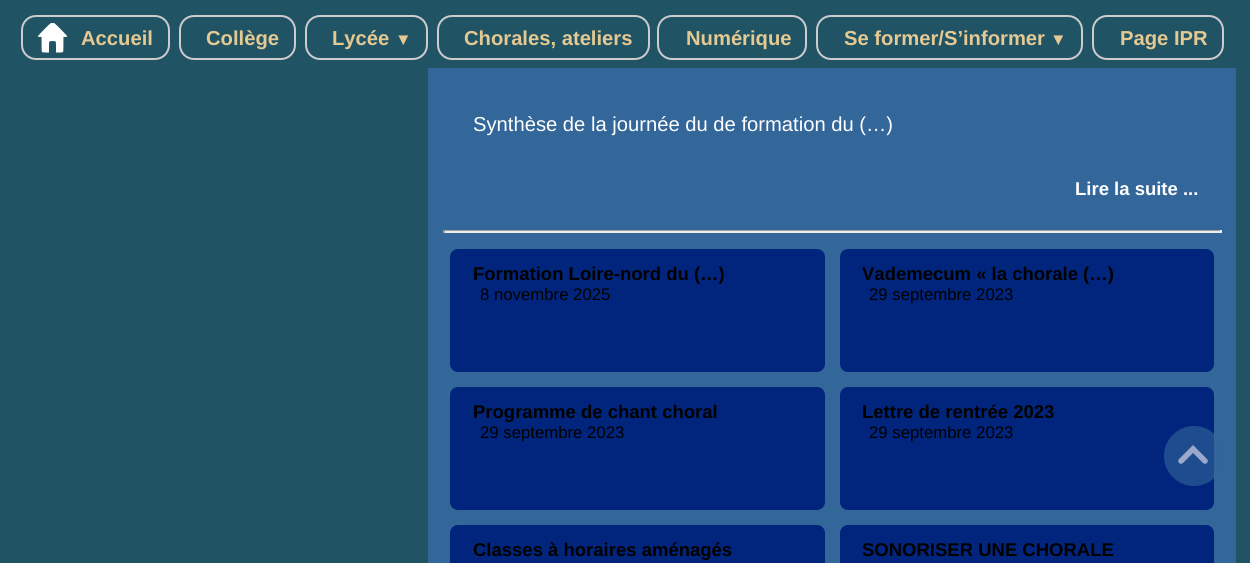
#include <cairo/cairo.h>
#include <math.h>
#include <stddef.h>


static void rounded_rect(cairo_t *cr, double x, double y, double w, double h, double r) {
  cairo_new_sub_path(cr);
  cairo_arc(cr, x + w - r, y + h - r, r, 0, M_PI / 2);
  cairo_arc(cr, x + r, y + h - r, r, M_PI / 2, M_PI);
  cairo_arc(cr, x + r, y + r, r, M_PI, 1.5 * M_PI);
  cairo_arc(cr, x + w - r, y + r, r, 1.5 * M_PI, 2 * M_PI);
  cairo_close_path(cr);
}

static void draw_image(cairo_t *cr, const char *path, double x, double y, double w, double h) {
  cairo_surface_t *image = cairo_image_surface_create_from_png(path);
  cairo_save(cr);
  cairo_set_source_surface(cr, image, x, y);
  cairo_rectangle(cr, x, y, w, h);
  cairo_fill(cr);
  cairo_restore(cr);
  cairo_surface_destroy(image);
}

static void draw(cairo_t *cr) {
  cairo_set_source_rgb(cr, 32 / 255.0, 83 / 255.0, 100 / 255.0);
  cairo_paint(cr);
  rounded_rect(cr, 22, 16, 147, 43, 14);
  cairo_set_source_rgb(cr, 204 / 255.0, 204 / 255.0, 204 / 255.0);
  cairo_stroke(cr);
  draw_image(cr, "images/1.png", 38, 23, 30, 30);
  rounded_rect(cr, 180, 16, 115, 43, 14);
  cairo_stroke(cr);
  rounded_rect(cr, 306, 16, 121, 43, 14);
  cairo_stroke(cr);
  rounded_rect(cr, 438, 16, 211, 43, 14);
  cairo_stroke(cr);
  rounded_rect(cr, 658, 16, 148, 43, 14);
  cairo_stroke(cr);
  rounded_rect(cr, 817, 16, 265, 43, 14);
  cairo_stroke(cr);
  rounded_rect(cr, 1093, 16, 130, 43, 14);
  cairo_stroke(cr);
  cairo_set_source_rgb(cr, 51 / 255.0, 102 / 255.0, 153 / 255.0);
  cairo_rectangle(cr, 428, 68, 808, 495);
  cairo_fill(cr);
  cairo_set_source_rgb(cr, 159 / 255.0, 159 / 255.0, 159 / 255.0);
  cairo_rectangle(cr, 443, 230, 778, 1);
  cairo_fill(cr);
  cairo_set_source_rgb(cr, 238 / 255.0, 238 / 255.0, 238 / 255.0);
  cairo_rectangle(cr, 1220, 230, 2, 3);
  cairo_fill(cr);
  cairo_rectangle(cr, 443, 231, 778, 2);
  cairo_fill(cr);
  cairo_set_source_rgb(cr, 159 / 255.0, 159 / 255.0, 159 / 255.0);
  cairo_rectangle(cr, 443, 230, 2, 3);
  cairo_fill(cr);
  cairo_set_source_rgb(cr, 1 / 255.0, 37 / 255.0, 125 / 255.0);
  rounded_rect(cr, 450, 249, 375, 123, 8);
  cairo_fill(cr);
  rounded_rect(cr, 840, 249, 374, 123, 8);
  cairo_fill(cr);
  rounded_rect(cr, 450, 387, 375, 123, 8);
  cairo_fill(cr);
  rounded_rect(cr, 840, 387, 374, 123, 8);
  cairo_fill(cr);
  rounded_rect(cr, 450, 525, 375, 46, 8);
  cairo_fill(cr);
  rounded_rect(cr, 840, 525, 374, 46, 8);
  cairo_fill(cr);
  cairo_set_source_rgba(cr, 51 / 255.0, 102 / 255.0, 153 / 255.0, 0.6);
  cairo_arc(cr, 1194, 456, 30, 0, 2 * M_PI);
  cairo_fill(cr);
  cairo_new_path(cr);
  cairo_move_to(cr, 1181, 461);
  cairo_line_to(cr, 1193, 449);
  cairo_line_to(cr, 1205, 461);
  cairo_set_source_rgb(cr, 153 / 255.0, 168 / 255.0, 203 / 255.0);
  cairo_set_line_width(cr, 5.6);
  cairo_set_line_cap(cr, CAIRO_LINE_CAP_ROUND);
  cairo_stroke(cr);
  cairo_select_font_face(cr, "Liberation Sans", CAIRO_FONT_SLANT_NORMAL, CAIRO_FONT_WEIGHT_BOLD);
  cairo_set_font_size(cr, 20.2);
  cairo_set_source_rgb(cr, 228 / 255.0, 201 / 255.0, 146 / 255.0);
  cairo_move_to(cr, 81, 45);
  cairo_show_text(cr, "Accueil");
  cairo_move_to(cr, 206, 45);
  cairo_show_text(cr, "Collège");
  cairo_move_to(cr, 332, 45);
  cairo_show_text(cr, "Lycée");
  cairo_set_font_size(cr, 16.75);
  cairo_move_to(cr, 395, 45);
  cairo_show_text(cr, "▼");
  cairo_set_font_size(cr, 20.2);
  cairo_move_to(cr, 464, 45);
  cairo_show_text(cr, "Chorales, ateliers");
  cairo_move_to(cr, 686, 45);
  cairo_show_text(cr, "Numérique");
  cairo_move_to(cr, 844, 45);
  cairo_show_text(cr, "Se former/S’informer");
  cairo_set_font_size(cr, 16.75);
  cairo_move_to(cr, 1050, 45);
  cairo_show_text(cr, "▼");
  cairo_set_font_size(cr, 20.2);
  cairo_move_to(cr, 1120, 45);
  cairo_show_text(cr, "Page IPR");
  cairo_select_font_face(cr, "Liberation Sans", CAIRO_FONT_SLANT_NORMAL, CAIRO_FONT_WEIGHT_NORMAL);
  cairo_set_source_rgb(cr, 1, 1, 1);
  cairo_move_to(cr, 473, 131);
  cairo_show_text(cr, "Synthèse de la journée du de formation du (…)");
  cairo_select_font_face(cr, "Liberation Sans", CAIRO_FONT_SLANT_NORMAL, CAIRO_FONT_WEIGHT_BOLD);
  cairo_set_font_size(cr, 18.5);
  cairo_move_to(cr, 1075, 195);
  cairo_show_text(cr, "Lire la suite ...");
  cairo_set_source_rgb(cr, 0, 0, 0);
  cairo_move_to(cr, 473, 280);
  cairo_show_text(cr, "Formation Loire-nord du (…)");
  cairo_select_font_face(cr, "Liberation Sans", CAIRO_FONT_SLANT_NORMAL, CAIRO_FONT_WEIGHT_NORMAL);
  cairo_set_font_size(cr, 16.75);
  cairo_move_to(cr, 480, 300);
  cairo_show_text(cr, "8 novembre 2025");
  cairo_select_font_face(cr, "Liberation Sans", CAIRO_FONT_SLANT_NORMAL, CAIRO_FONT_WEIGHT_BOLD);
  cairo_set_font_size(cr, 18.5);
  cairo_move_to(cr, 862, 280);
  cairo_show_text(cr, "Vademecum « la chorale (…)");
  cairo_select_font_face(cr, "Liberation Sans", CAIRO_FONT_SLANT_NORMAL, CAIRO_FONT_WEIGHT_NORMAL);
  cairo_set_font_size(cr, 16.75);
  cairo_move_to(cr, 869, 300);
  cairo_show_text(cr, "29 septembre 2023");
  cairo_select_font_face(cr, "Liberation Sans", CAIRO_FONT_SLANT_NORMAL, CAIRO_FONT_WEIGHT_BOLD);
  cairo_set_font_size(cr, 18.5);
  cairo_move_to(cr, 473, 418);
  cairo_show_text(cr, "Programme de chant choral");
  cairo_select_font_face(cr, "Liberation Sans", CAIRO_FONT_SLANT_NORMAL, CAIRO_FONT_WEIGHT_NORMAL);
  cairo_set_font_size(cr, 16.75);
  cairo_move_to(cr, 480, 438);
  cairo_show_text(cr, "29 septembre 2023");
  cairo_select_font_face(cr, "Liberation Sans", CAIRO_FONT_SLANT_NORMAL, CAIRO_FONT_WEIGHT_BOLD);
  cairo_set_font_size(cr, 18.5);
  cairo_move_to(cr, 862, 418);
  cairo_show_text(cr, "Lettre de rentrée 2023");
  cairo_select_font_face(cr, "Liberation Sans", CAIRO_FONT_SLANT_NORMAL, CAIRO_FONT_WEIGHT_NORMAL);
  cairo_set_font_size(cr, 16.75);
  cairo_move_to(cr, 869, 438);
  cairo_show_text(cr, "29 septembre 2023");
  cairo_select_font_face(cr, "Liberation Sans", CAIRO_FONT_SLANT_NORMAL, CAIRO_FONT_WEIGHT_BOLD);
  cairo_set_font_size(cr, 18.5);
  cairo_move_to(cr, 473, 556);
  cairo_show_text(cr, "Classes à horaires aménagés");
  cairo_move_to(cr, 862, 556);
  cairo_show_text(cr, "SONORISER UNE CHORALE");
}

int main(void) {
  cairo_surface_t *surface = cairo_image_surface_create(CAIRO_FORMAT_RGB24, 1250, 563);
  cairo_t *cr = cairo_create(surface);
  cairo_font_options_t *options = cairo_font_options_create();
  cairo_font_options_set_hint_metrics(options, CAIRO_HINT_METRICS_OFF);
  cairo_font_options_set_hint_style(options, CAIRO_HINT_STYLE_NONE);
  cairo_set_font_options(cr, options);
  cairo_set_miter_limit(cr, 4);
  draw(cr);
  cairo_surface_write_to_png(surface, "out.png");
  cairo_font_options_destroy(options);
  cairo_destroy(cr);
  cairo_surface_destroy(surface);
  return 0;
}
